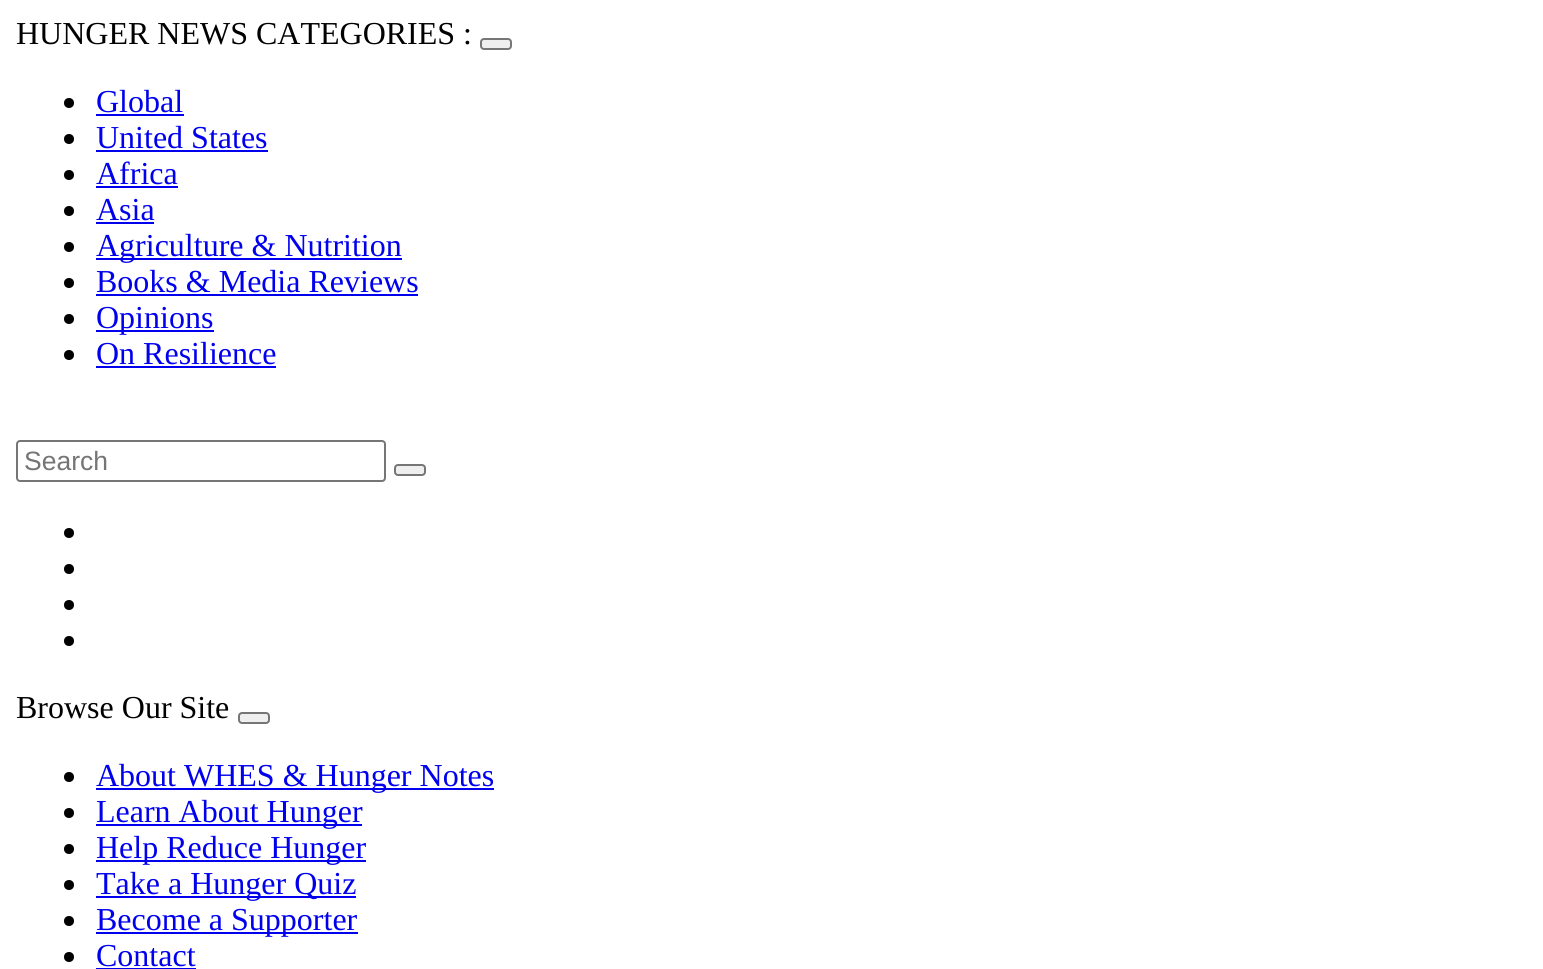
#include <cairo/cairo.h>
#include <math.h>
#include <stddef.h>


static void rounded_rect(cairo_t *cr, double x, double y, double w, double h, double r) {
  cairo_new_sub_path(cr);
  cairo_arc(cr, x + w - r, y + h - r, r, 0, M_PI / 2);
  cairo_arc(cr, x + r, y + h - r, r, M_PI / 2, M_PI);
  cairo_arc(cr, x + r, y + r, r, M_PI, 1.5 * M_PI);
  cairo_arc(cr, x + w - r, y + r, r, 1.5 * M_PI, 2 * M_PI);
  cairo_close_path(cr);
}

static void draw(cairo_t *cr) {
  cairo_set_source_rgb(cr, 1, 1, 1);
  cairo_paint(cr);
  cairo_set_source_rgb(cr, 239 / 255.0, 239 / 255.0, 239 / 255.0);
  rounded_rect(cr, 481, 39, 30, 10, 3);
  cairo_fill_preserve(cr);
  cairo_set_source_rgb(cr, 118 / 255.0, 118 / 255.0, 118 / 255.0);
  cairo_stroke(cr);
  cairo_set_source_rgb(cr, 0, 0, 0);
  cairo_arc(cr, 69, 103, 5, 0, 2 * M_PI);
  cairo_fill(cr);
  cairo_set_source_rgb(cr, 0, 0, 238 / 255.0);
  cairo_rectangle(cr, 96, 114, 88, 2);
  cairo_fill(cr);
  cairo_set_source_rgb(cr, 0, 0, 0);
  cairo_arc(cr, 69, 139, 5, 0, 2 * M_PI);
  cairo_fill(cr);
  cairo_set_source_rgb(cr, 0, 0, 238 / 255.0);
  cairo_rectangle(cr, 96, 150, 172, 2);
  cairo_fill(cr);
  cairo_set_source_rgb(cr, 0, 0, 0);
  cairo_arc(cr, 69, 175, 5, 0, 2 * M_PI);
  cairo_fill(cr);
  cairo_set_source_rgb(cr, 0, 0, 238 / 255.0);
  cairo_rectangle(cr, 96, 186, 82, 2);
  cairo_fill(cr);
  cairo_set_source_rgb(cr, 0, 0, 0);
  cairo_arc(cr, 69, 211, 5, 0, 2 * M_PI);
  cairo_fill(cr);
  cairo_set_source_rgb(cr, 0, 0, 238 / 255.0);
  cairo_rectangle(cr, 96, 222, 58, 2);
  cairo_fill(cr);
  cairo_set_source_rgb(cr, 0, 0, 0);
  cairo_arc(cr, 69, 247, 5, 0, 2 * M_PI);
  cairo_fill(cr);
  cairo_set_source_rgb(cr, 0, 0, 238 / 255.0);
  cairo_rectangle(cr, 96, 258, 306, 2);
  cairo_fill(cr);
  cairo_set_source_rgb(cr, 0, 0, 0);
  cairo_arc(cr, 69, 283, 5, 0, 2 * M_PI);
  cairo_fill(cr);
  cairo_set_source_rgb(cr, 0, 0, 238 / 255.0);
  cairo_rectangle(cr, 96, 294, 322, 2);
  cairo_fill(cr);
  cairo_set_source_rgb(cr, 0, 0, 0);
  cairo_arc(cr, 69, 319, 5, 0, 2 * M_PI);
  cairo_fill(cr);
  cairo_set_source_rgb(cr, 0, 0, 238 / 255.0);
  cairo_rectangle(cr, 96, 330, 118, 2);
  cairo_fill(cr);
  cairo_set_source_rgb(cr, 0, 0, 0);
  cairo_arc(cr, 69, 355, 5, 0, 2 * M_PI);
  cairo_fill(cr);
  cairo_set_source_rgb(cr, 0, 0, 238 / 255.0);
  cairo_rectangle(cr, 96, 366, 180, 2);
  cairo_fill(cr);
  rounded_rect(cr, 17, 441, 368, 40, 3);
  cairo_set_source_rgb(cr, 118 / 255.0, 118 / 255.0, 118 / 255.0);
  cairo_stroke(cr);
  cairo_set_source_rgb(cr, 239 / 255.0, 239 / 255.0, 239 / 255.0);
  rounded_rect(cr, 395, 465, 30, 10, 3);
  cairo_fill_preserve(cr);
  cairo_set_source_rgb(cr, 118 / 255.0, 118 / 255.0, 118 / 255.0);
  cairo_stroke(cr);
  cairo_set_source_rgb(cr, 0, 0, 0);
  cairo_arc(cr, 69, 533, 5, 0, 2 * M_PI);
  cairo_fill(cr);
  cairo_arc(cr, 69, 569, 5, 0, 2 * M_PI);
  cairo_fill(cr);
  cairo_arc(cr, 69, 605, 5, 0, 2 * M_PI);
  cairo_fill(cr);
  cairo_arc(cr, 69, 641, 5, 0, 2 * M_PI);
  cairo_fill(cr);
  cairo_set_source_rgb(cr, 239 / 255.0, 239 / 255.0, 239 / 255.0);
  rounded_rect(cr, 239, 713, 30, 10, 3);
  cairo_fill_preserve(cr);
  cairo_set_source_rgb(cr, 118 / 255.0, 118 / 255.0, 118 / 255.0);
  cairo_stroke(cr);
  cairo_set_source_rgb(cr, 0, 0, 0);
  cairo_arc(cr, 69, 777, 5, 0, 2 * M_PI);
  cairo_fill(cr);
  cairo_set_source_rgb(cr, 0, 0, 238 / 255.0);
  cairo_rectangle(cr, 96, 788, 398, 2);
  cairo_fill(cr);
  cairo_set_source_rgb(cr, 0, 0, 0);
  cairo_arc(cr, 69, 813, 5, 0, 2 * M_PI);
  cairo_fill(cr);
  cairo_set_source_rgb(cr, 0, 0, 238 / 255.0);
  cairo_rectangle(cr, 96, 824, 266, 2);
  cairo_fill(cr);
  cairo_set_source_rgb(cr, 0, 0, 0);
  cairo_arc(cr, 69, 849, 5, 0, 2 * M_PI);
  cairo_fill(cr);
  cairo_set_source_rgb(cr, 0, 0, 238 / 255.0);
  cairo_rectangle(cr, 96, 860, 270, 2);
  cairo_fill(cr);
  cairo_set_source_rgb(cr, 0, 0, 0);
  cairo_arc(cr, 69, 885, 5, 0, 2 * M_PI);
  cairo_fill(cr);
  cairo_set_source_rgb(cr, 0, 0, 238 / 255.0);
  cairo_rectangle(cr, 96, 896, 260, 2);
  cairo_fill(cr);
  cairo_set_source_rgb(cr, 0, 0, 0);
  cairo_arc(cr, 69, 921, 5, 0, 2 * M_PI);
  cairo_fill(cr);
  cairo_set_source_rgb(cr, 0, 0, 238 / 255.0);
  cairo_rectangle(cr, 96, 932, 262, 2);
  cairo_fill(cr);
  cairo_set_source_rgb(cr, 0, 0, 0);
  cairo_arc(cr, 69, 957, 5, 0, 2 * M_PI);
  cairo_fill(cr);
  cairo_set_source_rgb(cr, 0, 0, 238 / 255.0);
  cairo_rectangle(cr, 96, 968, 100, 1);
  cairo_fill(cr);
  cairo_select_font_face(cr, "Liberation Serif", CAIRO_FONT_SLANT_NORMAL, CAIRO_FONT_WEIGHT_NORMAL);
  cairo_set_font_size(cr, 32);
  cairo_set_source_rgb(cr, 0, 0, 0);
  cairo_move_to(cr, 16, 44);
  cairo_show_text(cr, "HUNGER NEWS CATEGORIES :");
  cairo_set_source_rgb(cr, 0, 0, 238 / 255.0);
  cairo_move_to(cr, 96, 112);
  cairo_show_text(cr, "Global");
  cairo_move_to(cr, 96, 148);
  cairo_show_text(cr, "United States");
  cairo_move_to(cr, 96, 184);
  cairo_show_text(cr, "Africa");
  cairo_move_to(cr, 96, 220);
  cairo_show_text(cr, "Asia");
  cairo_move_to(cr, 96, 256);
  cairo_show_text(cr, "Agriculture & Nutrition");
  cairo_move_to(cr, 96, 292);
  cairo_show_text(cr, "Books & Media Reviews");
  cairo_move_to(cr, 96, 328);
  cairo_show_text(cr, "Opinions");
  cairo_move_to(cr, 96, 364);
  cairo_show_text(cr, "On Resilience");
  cairo_select_font_face(cr, "Liberation Sans", CAIRO_FONT_SLANT_NORMAL, CAIRO_FONT_WEIGHT_NORMAL);
  cairo_set_font_size(cr, 26.5);
  cairo_set_source_rgb(cr, 117 / 255.0, 117 / 255.0, 117 / 255.0);
  cairo_move_to(cr, 24, 470);
  cairo_show_text(cr, "Search");
  cairo_select_font_face(cr, "Liberation Serif", CAIRO_FONT_SLANT_NORMAL, CAIRO_FONT_WEIGHT_NORMAL);
  cairo_set_font_size(cr, 32);
  cairo_set_source_rgb(cr, 0, 0, 0);
  cairo_move_to(cr, 16, 718);
  cairo_show_text(cr, "Browse Our Site");
  cairo_set_source_rgb(cr, 0, 0, 238 / 255.0);
  cairo_move_to(cr, 96, 786);
  cairo_show_text(cr, "About WHES & Hunger Notes");
  cairo_move_to(cr, 96, 822);
  cairo_show_text(cr, "Learn About Hunger");
  cairo_move_to(cr, 96, 858);
  cairo_show_text(cr, "Help Reduce Hunger");
  cairo_move_to(cr, 96, 894);
  cairo_show_text(cr, "Take a Hunger Quiz");
  cairo_move_to(cr, 96, 930);
  cairo_show_text(cr, "Become a Supporter");
  cairo_move_to(cr, 96, 966);
  cairo_show_text(cr, "Contact");
}

int main(void) {
  cairo_surface_t *surface = cairo_image_surface_create(CAIRO_FORMAT_RGB24, 1543, 969);
  cairo_t *cr = cairo_create(surface);
  cairo_font_options_t *options = cairo_font_options_create();
  cairo_font_options_set_hint_metrics(options, CAIRO_HINT_METRICS_OFF);
  cairo_font_options_set_hint_style(options, CAIRO_HINT_STYLE_NONE);
  cairo_set_font_options(cr, options);
  cairo_set_miter_limit(cr, 4);
  draw(cr);
  cairo_surface_write_to_png(surface, "out.png");
  cairo_font_options_destroy(options);
  cairo_destroy(cr);
  cairo_surface_destroy(surface);
  return 0;
}
